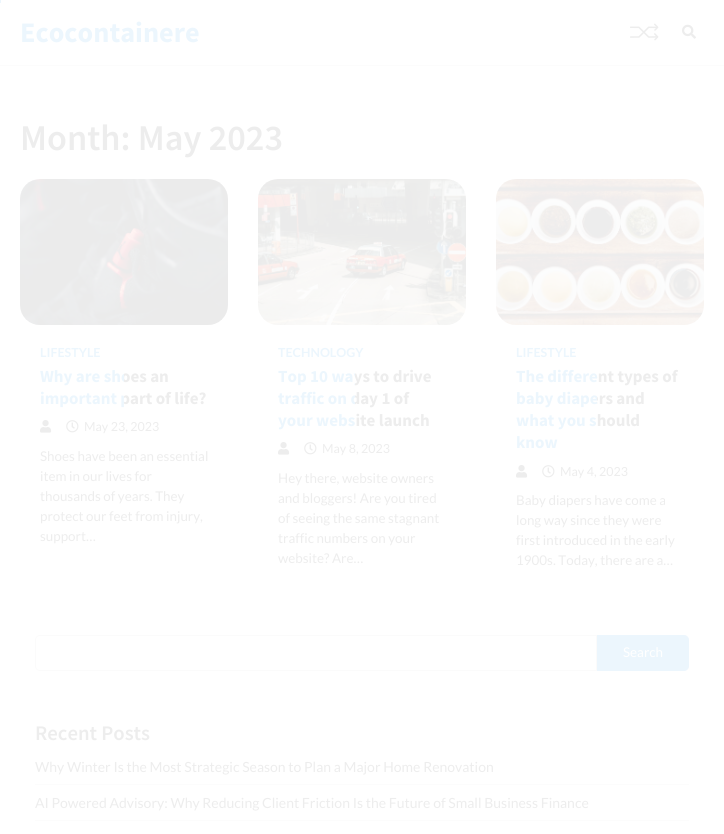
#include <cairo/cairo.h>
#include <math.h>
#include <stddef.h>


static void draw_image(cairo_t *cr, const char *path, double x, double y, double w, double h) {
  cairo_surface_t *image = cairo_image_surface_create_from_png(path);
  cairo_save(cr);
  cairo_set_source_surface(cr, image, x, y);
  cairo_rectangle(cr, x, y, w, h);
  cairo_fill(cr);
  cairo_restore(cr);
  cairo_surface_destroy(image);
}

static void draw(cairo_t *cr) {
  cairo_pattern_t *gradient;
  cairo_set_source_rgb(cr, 1, 1, 1);
  cairo_paint(cr);
  cairo_set_source_rgb(cr, 236 / 255.0, 246 / 255.0, 253 / 255.0);
  cairo_rectangle(cr, 0, 0, 1, 3);
  cairo_fill(cr);
  cairo_set_source_rgb(cr, 252 / 255.0, 252 / 255.0, 252 / 255.0);
  cairo_rectangle(cr, 0, 65, 724, 1);
  cairo_fill(cr);
  draw_image(cr, "images/1.png", 630, 23, 29, 18);
  draw_image(cr, "images/2.png", 682, 24, 14, 15);
  draw_image(cr, "images/3.png", 20, 179, 208, 146);
  draw_image(cr, "images/4.png", 40, 420, 12, 13);
  draw_image(cr, "images/5.png", 66, 420, 13, 13);
  draw_image(cr, "images/6.png", 258, 179, 208, 146);
  draw_image(cr, "images/4.png", 278, 442, 12, 13);
  draw_image(cr, "images/5.png", 304, 442, 13, 13);
  draw_image(cr, "images/7.png", 496, 179, 208, 146);
  draw_image(cr, "images/4.png", 516, 465, 12, 13);
  draw_image(cr, "images/5.png", 542, 465, 13, 13);
  cairo_new_path(cr);
  cairo_move_to(cr, 40, 635.5);
  cairo_line_to(cr, 596.5, 635.5);
  cairo_line_to(cr, 596.5, 670.5);
  cairo_line_to(cr, 40, 670.5);
  cairo_curve_to(cr, 37.5, 670.5, 35.5, 668.5, 35.5, 666);
  cairo_line_to(cr, 35.5, 640);
  cairo_curve_to(cr, 35.5, 637.5, 37.5, 635.5, 40, 635.5);
  cairo_close_path(cr);
  cairo_set_source_rgb(cr, 251 / 255.0, 251 / 255.0, 251 / 255.0);
  cairo_set_line_width(cr, 1);
  cairo_stroke(cr);
  cairo_set_source_rgb(cr, 236 / 255.0, 246 / 255.0, 253 / 255.0);
  cairo_new_path(cr);
  cairo_move_to(cr, 597.5, 635.5);
  cairo_line_to(cr, 684, 635.5);
  cairo_curve_to(cr, 686.5, 635.5, 688.5, 637.5, 688.5, 640);
  cairo_line_to(cr, 688.5, 666);
  cairo_curve_to(cr, 688.5, 668.5, 686.5, 670.5, 684, 670.5);
  cairo_line_to(cr, 597.5, 670.5);
  cairo_close_path(cr);
  cairo_fill_preserve(cr);
  cairo_stroke(cr);
  cairo_set_source_rgb(cr, 252 / 255.0, 252 / 255.0, 252 / 255.0);
  cairo_rectangle(cr, 35, 784, 654, 1);
  cairo_fill(cr);
  cairo_rectangle(cr, 35, 820, 654, 1);
  cairo_fill(cr);
  cairo_select_font_face(cr, "Source Sans Pro", CAIRO_FONT_SLANT_NORMAL, CAIRO_FONT_WEIGHT_BOLD);
  cairo_set_font_size(cr, 28.25);
  cairo_set_source_rgb(cr, 236 / 255.0, 246 / 255.0, 253 / 255.0);
  cairo_move_to(cr, 20, 42);
  cairo_show_text(cr, "Ecocontainere");
  cairo_select_font_face(cr, "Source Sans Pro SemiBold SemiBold", CAIRO_FONT_SLANT_NORMAL, CAIRO_FONT_WEIGHT_NORMAL);
  cairo_set_font_size(cr, 36.25);
  cairo_set_source_rgb(cr, 237 / 255.0, 237 / 255.0, 237 / 255.0);
  cairo_move_to(cr, 20, 150);
  cairo_show_text(cr, "Month: May 2023");
  cairo_select_font_face(cr, "Lato", CAIRO_FONT_SLANT_NORMAL, CAIRO_FONT_WEIGHT_BOLD);
  cairo_set_font_size(cr, 12.5);
  cairo_set_source_rgb(cr, 236 / 255.0, 246 / 255.0, 253 / 255.0);
  cairo_move_to(cr, 40, 357);
  cairo_show_text(cr, "LIFESTYLE");
  cairo_select_font_face(cr, "Source Sans Pro", CAIRO_FONT_SLANT_NORMAL, CAIRO_FONT_WEIGHT_BOLD);
  cairo_set_font_size(cr, 17);
  gradient = cairo_pattern_create_linear(40, 387, 207, 387);
  cairo_pattern_add_color_stop_rgba(gradient, 0, 236 / 255.0, 246 / 255.0, 253 / 255.0, 1);
  cairo_pattern_add_color_stop_rgba(gradient, 0.5, 236 / 255.0, 246 / 255.0, 253 / 255.0, 1);
  cairo_pattern_add_color_stop_rgba(gradient, 0.5, 237 / 255.0, 237 / 255.0, 237 / 255.0, 1);
  cairo_set_source(cr, gradient);
  cairo_pattern_destroy(gradient);
  cairo_move_to(cr, 40, 382);
  cairo_show_text(cr, "Why are shoes an");
  cairo_move_to(cr, 40, 404);
  cairo_show_text(cr, "important part of life?");
  cairo_select_font_face(cr, "Lato", CAIRO_FONT_SLANT_NORMAL, CAIRO_FONT_WEIGHT_NORMAL);
  cairo_set_font_size(cr, 12.5);
  cairo_set_source_rgb(cr, 237 / 255.0, 237 / 255.0, 237 / 255.0);
  cairo_move_to(cr, 84, 431);
  cairo_show_text(cr, "May 23, 2023");
  cairo_set_font_size(cr, 13.4);
  cairo_move_to(cr, 40, 461);
  cairo_show_text(cr, "Shoes have been an essential");
  cairo_move_to(cr, 40, 481);
  cairo_show_text(cr, "item in our lives for");
  cairo_move_to(cr, 40, 501);
  cairo_show_text(cr, "thousands of years. They");
  cairo_move_to(cr, 40, 521);
  cairo_show_text(cr, "protect our feet from injury,");
  cairo_move_to(cr, 40, 541);
  cairo_show_text(cr, "support…");
  cairo_select_font_face(cr, "Lato", CAIRO_FONT_SLANT_NORMAL, CAIRO_FONT_WEIGHT_BOLD);
  cairo_set_font_size(cr, 12.5);
  cairo_set_source_rgb(cr, 236 / 255.0, 246 / 255.0, 253 / 255.0);
  cairo_move_to(cr, 278, 357);
  cairo_show_text(cr, "TECHNOLOGY");
  cairo_select_font_face(cr, "Source Sans Pro", CAIRO_FONT_SLANT_NORMAL, CAIRO_FONT_WEIGHT_BOLD);
  cairo_set_font_size(cr, 17);
  gradient = cairo_pattern_create_linear(278, 398, 432, 398);
  cairo_pattern_add_color_stop_rgba(gradient, 0, 236 / 255.0, 246 / 255.0, 253 / 255.0, 1);
  cairo_pattern_add_color_stop_rgba(gradient, 0.5, 236 / 255.0, 246 / 255.0, 253 / 255.0, 1);
  cairo_pattern_add_color_stop_rgba(gradient, 0.5, 237 / 255.0, 237 / 255.0, 237 / 255.0, 1);
  cairo_set_source(cr, gradient);
  cairo_pattern_destroy(gradient);
  cairo_move_to(cr, 278, 382);
  cairo_show_text(cr, "Top 10 ways to drive");
  cairo_move_to(cr, 278, 404);
  cairo_show_text(cr, "traffic on day 1 of");
  cairo_move_to(cr, 278, 426);
  cairo_show_text(cr, "your website launch");
  cairo_select_font_face(cr, "Lato", CAIRO_FONT_SLANT_NORMAL, CAIRO_FONT_WEIGHT_NORMAL);
  cairo_set_font_size(cr, 12.5);
  cairo_set_source_rgb(cr, 237 / 255.0, 237 / 255.0, 237 / 255.0);
  cairo_move_to(cr, 322, 453);
  cairo_show_text(cr, "May 8, 2023");
  cairo_set_font_size(cr, 13.4);
  cairo_move_to(cr, 278, 483);
  cairo_show_text(cr, "Hey there, website owners");
  cairo_move_to(cr, 278, 503);
  cairo_show_text(cr, "and bloggers! Are you tired");
  cairo_move_to(cr, 278, 523);
  cairo_show_text(cr, "of seeing the same stagnant");
  cairo_move_to(cr, 278, 543);
  cairo_show_text(cr, "traffic numbers on your");
  cairo_move_to(cr, 278, 563);
  cairo_show_text(cr, "website? Are…");
  cairo_select_font_face(cr, "Lato", CAIRO_FONT_SLANT_NORMAL, CAIRO_FONT_WEIGHT_BOLD);
  cairo_set_font_size(cr, 12.5);
  cairo_set_source_rgb(cr, 236 / 255.0, 246 / 255.0, 253 / 255.0);
  cairo_move_to(cr, 516, 357);
  cairo_show_text(cr, "LIFESTYLE");
  cairo_select_font_face(cr, "Source Sans Pro", CAIRO_FONT_SLANT_NORMAL, CAIRO_FONT_WEIGHT_BOLD);
  cairo_set_font_size(cr, 17);
  gradient = cairo_pattern_create_linear(516, 409, 678, 409);
  cairo_pattern_add_color_stop_rgba(gradient, 0, 236 / 255.0, 246 / 255.0, 253 / 255.0, 1);
  cairo_pattern_add_color_stop_rgba(gradient, 0.5, 236 / 255.0, 246 / 255.0, 253 / 255.0, 1);
  cairo_pattern_add_color_stop_rgba(gradient, 0.5, 237 / 255.0, 237 / 255.0, 237 / 255.0, 1);
  cairo_set_source(cr, gradient);
  cairo_pattern_destroy(gradient);
  cairo_move_to(cr, 516, 382);
  cairo_show_text(cr, "The different types of");
  cairo_move_to(cr, 516, 404);
  cairo_show_text(cr, "baby diapers and");
  cairo_move_to(cr, 516, 426);
  cairo_show_text(cr, "what you should");
  cairo_move_to(cr, 516, 448);
  cairo_show_text(cr, "know");
  cairo_select_font_face(cr, "Lato", CAIRO_FONT_SLANT_NORMAL, CAIRO_FONT_WEIGHT_NORMAL);
  cairo_set_font_size(cr, 12.5);
  cairo_set_source_rgb(cr, 237 / 255.0, 237 / 255.0, 237 / 255.0);
  cairo_move_to(cr, 560, 476);
  cairo_show_text(cr, "May 4, 2023");
  cairo_set_font_size(cr, 13.4);
  cairo_move_to(cr, 516, 505);
  cairo_show_text(cr, "Baby diapers have come a");
  cairo_move_to(cr, 516, 525);
  cairo_show_text(cr, "long way since they were");
  cairo_move_to(cr, 516, 545);
  cairo_show_text(cr, "first introduced in the early");
  cairo_move_to(cr, 516, 565);
  cairo_show_text(cr, "1900s. Today, there are a…");
  cairo_set_source_rgb(cr, 1, 1, 1);
  cairo_move_to(cr, 623, 657);
  cairo_show_text(cr, "Search");
  cairo_select_font_face(cr, "Source Sans Pro SemiBold SemiBold", CAIRO_FONT_SLANT_NORMAL, CAIRO_FONT_WEIGHT_NORMAL);
  cairo_set_font_size(cr, 20.75);
  cairo_set_source_rgb(cr, 237 / 255.0, 237 / 255.0, 237 / 255.0);
  cairo_move_to(cr, 35, 740);
  cairo_show_text(cr, "Recent Posts");
  cairo_select_font_face(cr, "Lato", CAIRO_FONT_SLANT_NORMAL, CAIRO_FONT_WEIGHT_NORMAL);
  cairo_set_font_size(cr, 14);
  cairo_move_to(cr, 35, 772);
  cairo_show_text(cr, "Why Winter Is the Most Strategic Season to Plan a Major Home Renovation");
  cairo_move_to(cr, 35, 808);
  cairo_show_text(cr, "AI Powered Advisory: Why Reducing Client Friction Is the Future of Small Business Finance");
}

int main(void) {
  cairo_surface_t *surface = cairo_image_surface_create(CAIRO_FORMAT_RGB24, 724, 834);
  cairo_t *cr = cairo_create(surface);
  cairo_font_options_t *options = cairo_font_options_create();
  cairo_font_options_set_hint_metrics(options, CAIRO_HINT_METRICS_OFF);
  cairo_font_options_set_hint_style(options, CAIRO_HINT_STYLE_NONE);
  cairo_set_font_options(cr, options);
  cairo_set_miter_limit(cr, 4);
  draw(cr);
  cairo_surface_write_to_png(surface, "out.png");
  cairo_font_options_destroy(options);
  cairo_destroy(cr);
  cairo_surface_destroy(surface);
  return 0;
}
